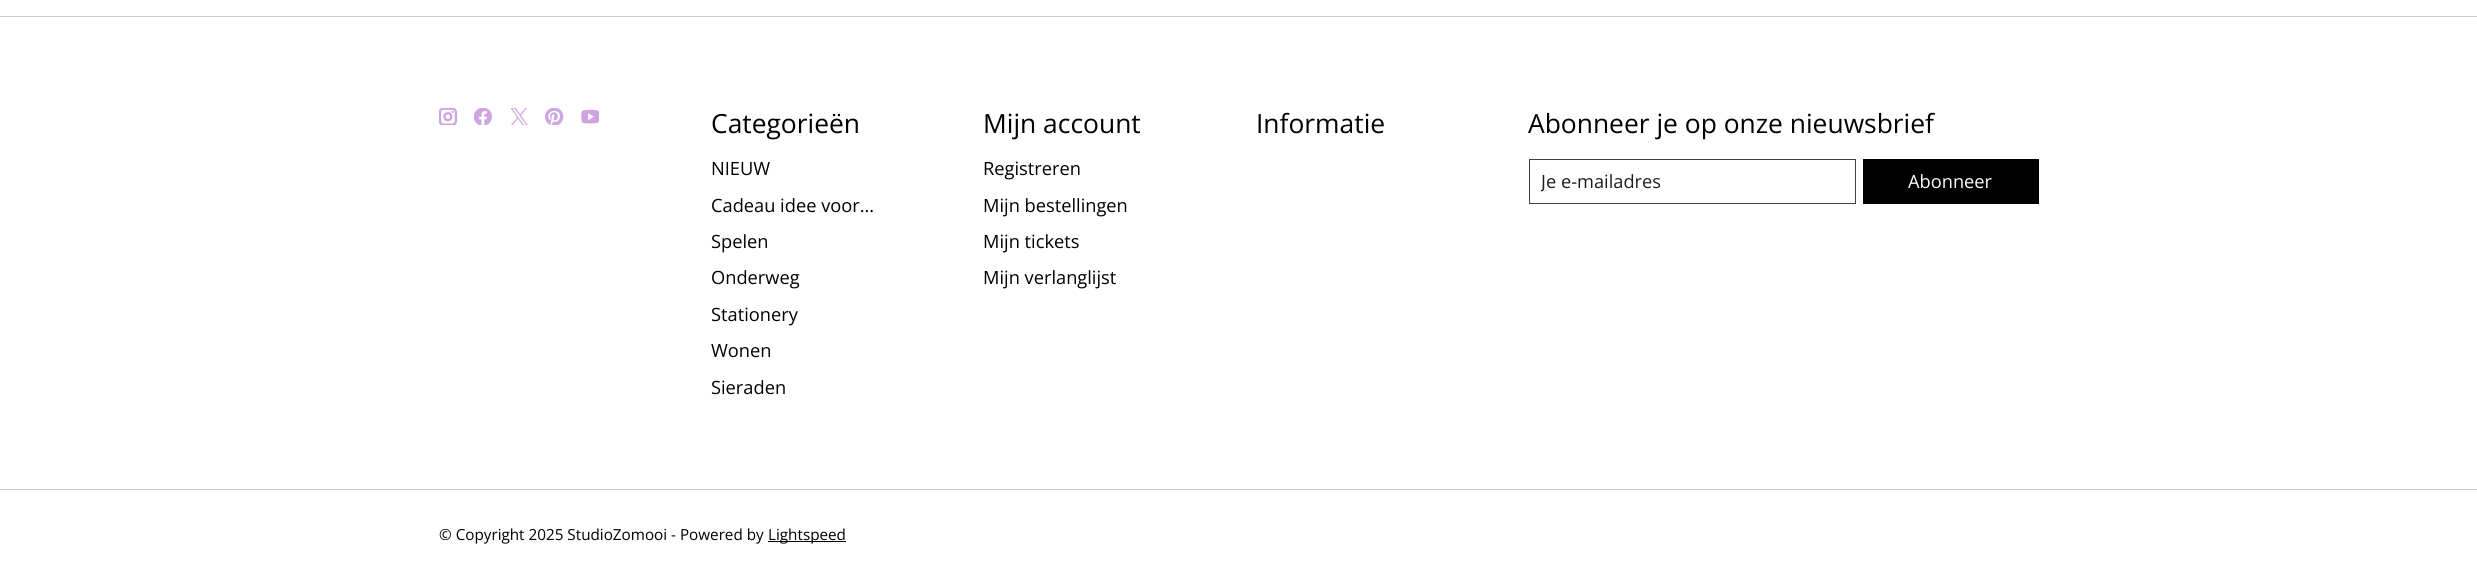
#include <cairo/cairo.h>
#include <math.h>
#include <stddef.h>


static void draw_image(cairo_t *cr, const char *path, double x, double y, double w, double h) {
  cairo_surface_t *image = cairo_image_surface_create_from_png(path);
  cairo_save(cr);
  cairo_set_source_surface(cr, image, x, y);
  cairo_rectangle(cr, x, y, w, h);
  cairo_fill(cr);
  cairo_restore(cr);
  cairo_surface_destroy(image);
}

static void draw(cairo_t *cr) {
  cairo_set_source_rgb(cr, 1, 1, 1);
  cairo_paint(cr);
  cairo_set_source_rgb(cr, 204 / 255.0, 204 / 255.0, 204 / 255.0);
  cairo_rectangle(cr, 0, 16, 2477, 1);
  cairo_fill(cr);
  draw_image(cr, "images/1.png", 439, 108, 19, 17);
  draw_image(cr, "images/2.png", 474, 108, 18, 17);
  draw_image(cr, "images/3.png", 510, 108, 18, 17);
  draw_image(cr, "images/4.png", 545, 108, 19, 17);
  draw_image(cr, "images/5.png", 581, 109, 18, 15);
  cairo_rectangle(cr, 1529.5, 159.5, 326, 44);
  cairo_set_source_rgb(cr, 65 / 255.0, 65 / 255.0, 65 / 255.0);
  cairo_set_line_width(cr, 1);
  cairo_stroke(cr);
  cairo_set_source_rgb(cr, 0, 0, 0);
  cairo_rectangle(cr, 1863, 159, 176, 45);
  cairo_fill(cr);
  cairo_set_source_rgb(cr, 204 / 255.0, 204 / 255.0, 204 / 255.0);
  cairo_rectangle(cr, 0, 489, 2477, 1);
  cairo_fill(cr);
  cairo_set_source_rgb(cr, 0, 0, 0);
  cairo_rectangle(cr, 768, 541, 78, 1);
  cairo_fill(cr);
  cairo_select_font_face(cr, "Open Sans", CAIRO_FONT_SLANT_NORMAL, CAIRO_FONT_WEIGHT_NORMAL);
  cairo_set_font_size(cr, 26.4);
  cairo_move_to(cr, 711, 133);
  cairo_show_text(cr, "Categorieën");
  cairo_set_font_size(cr, 18.25);
  cairo_move_to(cr, 711, 175);
  cairo_show_text(cr, "NIEUW");
  cairo_move_to(cr, 711, 212);
  cairo_show_text(cr, "Cadeau idee voor...");
  cairo_move_to(cr, 711, 248);
  cairo_show_text(cr, "Spelen");
  cairo_move_to(cr, 711, 284);
  cairo_show_text(cr, "Onderweg");
  cairo_move_to(cr, 711, 321);
  cairo_show_text(cr, "Stationery");
  cairo_move_to(cr, 711, 357);
  cairo_show_text(cr, "Wonen");
  cairo_move_to(cr, 711, 394);
  cairo_show_text(cr, "Sieraden");
  cairo_set_font_size(cr, 26.4);
  cairo_move_to(cr, 983, 133);
  cairo_show_text(cr, "Mijn account");
  cairo_set_font_size(cr, 18.25);
  cairo_move_to(cr, 983, 175);
  cairo_show_text(cr, "Registreren");
  cairo_move_to(cr, 983, 212);
  cairo_show_text(cr, "Mijn bestellingen");
  cairo_move_to(cr, 983, 248);
  cairo_show_text(cr, "Mijn tickets");
  cairo_move_to(cr, 983, 284);
  cairo_show_text(cr, "Mijn verlanglijst");
  cairo_set_font_size(cr, 26.4);
  cairo_move_to(cr, 1256, 133);
  cairo_show_text(cr, "Informatie");
  cairo_move_to(cr, 1528, 133);
  cairo_show_text(cr, "Abonneer je op onze nieuwsbrief");
  cairo_save(cr);
  cairo_rectangle(cr, 1541, 169, 303, 25);
  cairo_clip(cr);
  cairo_set_font_size(cr, 18.25);
  cairo_set_source_rgb(cr, 28 / 255.0, 28 / 255.0, 33 / 255.0);
  cairo_move_to(cr, 1541, 188);
  cairo_show_text(cr, "Je e-mailadres");
  cairo_restore(cr);
  cairo_set_font_size(cr, 18.25);
  cairo_set_source_rgb(cr, 1, 1, 1);
  cairo_move_to(cr, 1908, 188);
  cairo_show_text(cr, "Abonneer");
  cairo_set_font_size(cr, 15.25);
  cairo_set_source_rgb(cr, 0, 0, 0);
  cairo_move_to(cr, 439, 540);
  cairo_show_text(cr, "© Copyright 2025 StudioZomooi - Powered by");
  cairo_move_to(cr, 768, 540);
  cairo_show_text(cr, "Lightspeed");
}

int main(void) {
  cairo_surface_t *surface = cairo_image_surface_create(CAIRO_FORMAT_RGB24, 2477, 579);
  cairo_t *cr = cairo_create(surface);
  cairo_font_options_t *options = cairo_font_options_create();
  cairo_font_options_set_hint_metrics(options, CAIRO_HINT_METRICS_OFF);
  cairo_font_options_set_hint_style(options, CAIRO_HINT_STYLE_NONE);
  cairo_set_font_options(cr, options);
  cairo_set_miter_limit(cr, 4);
  draw(cr);
  cairo_surface_write_to_png(surface, "out.png");
  cairo_font_options_destroy(options);
  cairo_destroy(cr);
  cairo_surface_destroy(surface);
  return 0;
}
